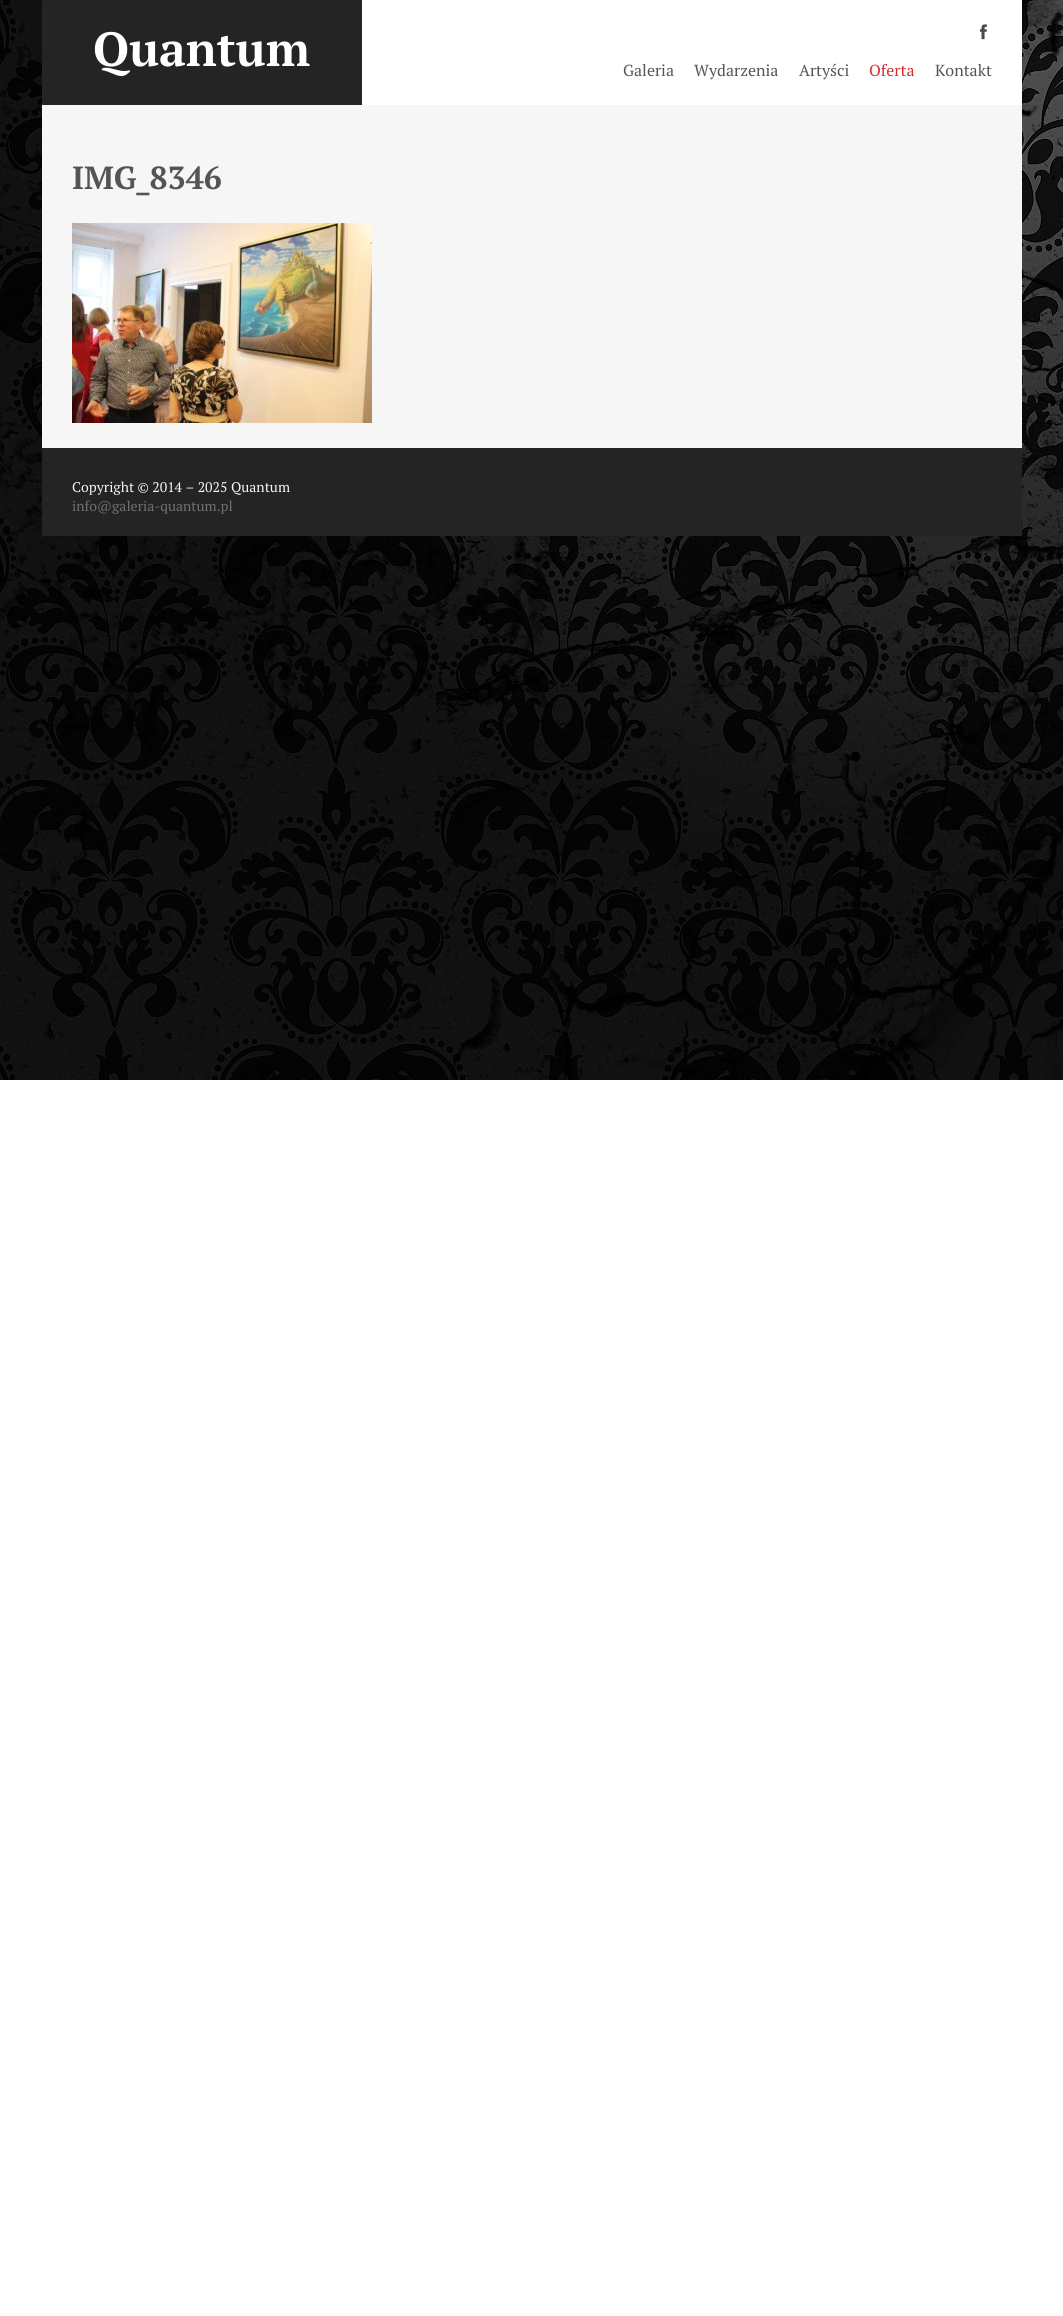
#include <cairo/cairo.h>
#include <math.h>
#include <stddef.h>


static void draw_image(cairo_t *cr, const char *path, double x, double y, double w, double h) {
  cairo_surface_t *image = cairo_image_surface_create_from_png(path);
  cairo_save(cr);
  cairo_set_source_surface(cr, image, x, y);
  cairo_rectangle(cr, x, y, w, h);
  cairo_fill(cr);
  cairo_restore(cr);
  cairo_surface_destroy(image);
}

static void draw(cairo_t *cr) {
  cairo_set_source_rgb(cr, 1, 1, 1);
  cairo_paint(cr);
  draw_image(cr, "images/1.png", 0, 0, 1063, 1080);
  cairo_set_source_rgb(cr, 246 / 255.0, 246 / 255.0, 246 / 255.0);
  cairo_rectangle(cr, 42, 105, 980, 343);
  cairo_fill(cr);
  cairo_set_source_rgb(cr, 1, 1, 1);
  cairo_rectangle(cr, 362, 0, 660, 105);
  cairo_fill(cr);
  cairo_set_source_rgb(cr, 36 / 255.0, 36 / 255.0, 36 / 255.0);
  cairo_rectangle(cr, 42, 0, 320, 105);
  cairo_fill(cr);
  draw_image(cr, "images/2.png", 980, 24, 7, 16);
  draw_image(cr, "images/3.png", 72, 223, 300, 200);
  cairo_rectangle(cr, 42, 448, 980, 88);
  cairo_fill(cr);
  cairo_select_font_face(cr, "PT Serif", CAIRO_FONT_SLANT_NORMAL, CAIRO_FONT_WEIGHT_BOLD);
  cairo_set_font_size(cr, 48);
  cairo_set_source_rgb(cr, 1, 1, 1);
  cairo_move_to(cr, 93, 66);
  cairo_show_text(cr, "Quantum");
  cairo_select_font_face(cr, "PT Serif", CAIRO_FONT_SLANT_NORMAL, CAIRO_FONT_WEIGHT_NORMAL);
  cairo_set_font_size(cr, 16);
  cairo_set_source_rgb(cr, 84 / 255.0, 84 / 255.0, 84 / 255.0);
  cairo_move_to(cr, 623, 76);
  cairo_show_text(cr, "Galeria");
  cairo_move_to(cr, 694, 76);
  cairo_show_text(cr, "Wydarzenia");
  cairo_move_to(cr, 799, 76);
  cairo_show_text(cr, "Artyści");
  cairo_set_source_rgb(cr, 216 / 255.0, 43 / 255.0, 43 / 255.0);
  cairo_move_to(cr, 869, 76);
  cairo_show_text(cr, "Oferta");
  cairo_set_source_rgb(cr, 84 / 255.0, 84 / 255.0, 84 / 255.0);
  cairo_move_to(cr, 935, 76);
  cairo_show_text(cr, "Kontakt");
  cairo_select_font_face(cr, "PT Serif", CAIRO_FONT_SLANT_NORMAL, CAIRO_FONT_WEIGHT_BOLD);
  cairo_set_font_size(cr, 32);
  cairo_move_to(cr, 72, 189);
  cairo_show_text(cr, "IMG_8346");
  cairo_select_font_face(cr, "PT Serif", CAIRO_FONT_SLANT_NORMAL, CAIRO_FONT_WEIGHT_NORMAL);
  cairo_set_font_size(cr, 14);
  cairo_set_source_rgb(cr, 245 / 255.0, 245 / 255.0, 245 / 255.0);
  cairo_move_to(cr, 72, 492);
  cairo_show_text(cr, "Copyright © 2014 – 2025 Quantum");
  cairo_set_source_rgb(cr, 112 / 255.0, 112 / 255.0, 112 / 255.0);
  cairo_move_to(cr, 72, 511);
  cairo_show_text(cr, "info@galeria-quantum.pl");
}

int main(void) {
  cairo_surface_t *surface = cairo_image_surface_create(CAIRO_FORMAT_RGB24, 1063, 2316);
  cairo_t *cr = cairo_create(surface);
  cairo_font_options_t *options = cairo_font_options_create();
  cairo_font_options_set_hint_metrics(options, CAIRO_HINT_METRICS_OFF);
  cairo_font_options_set_hint_style(options, CAIRO_HINT_STYLE_NONE);
  cairo_set_font_options(cr, options);
  cairo_set_miter_limit(cr, 4);
  draw(cr);
  cairo_surface_write_to_png(surface, "out.png");
  cairo_font_options_destroy(options);
  cairo_destroy(cr);
  cairo_surface_destroy(surface);
  return 0;
}
